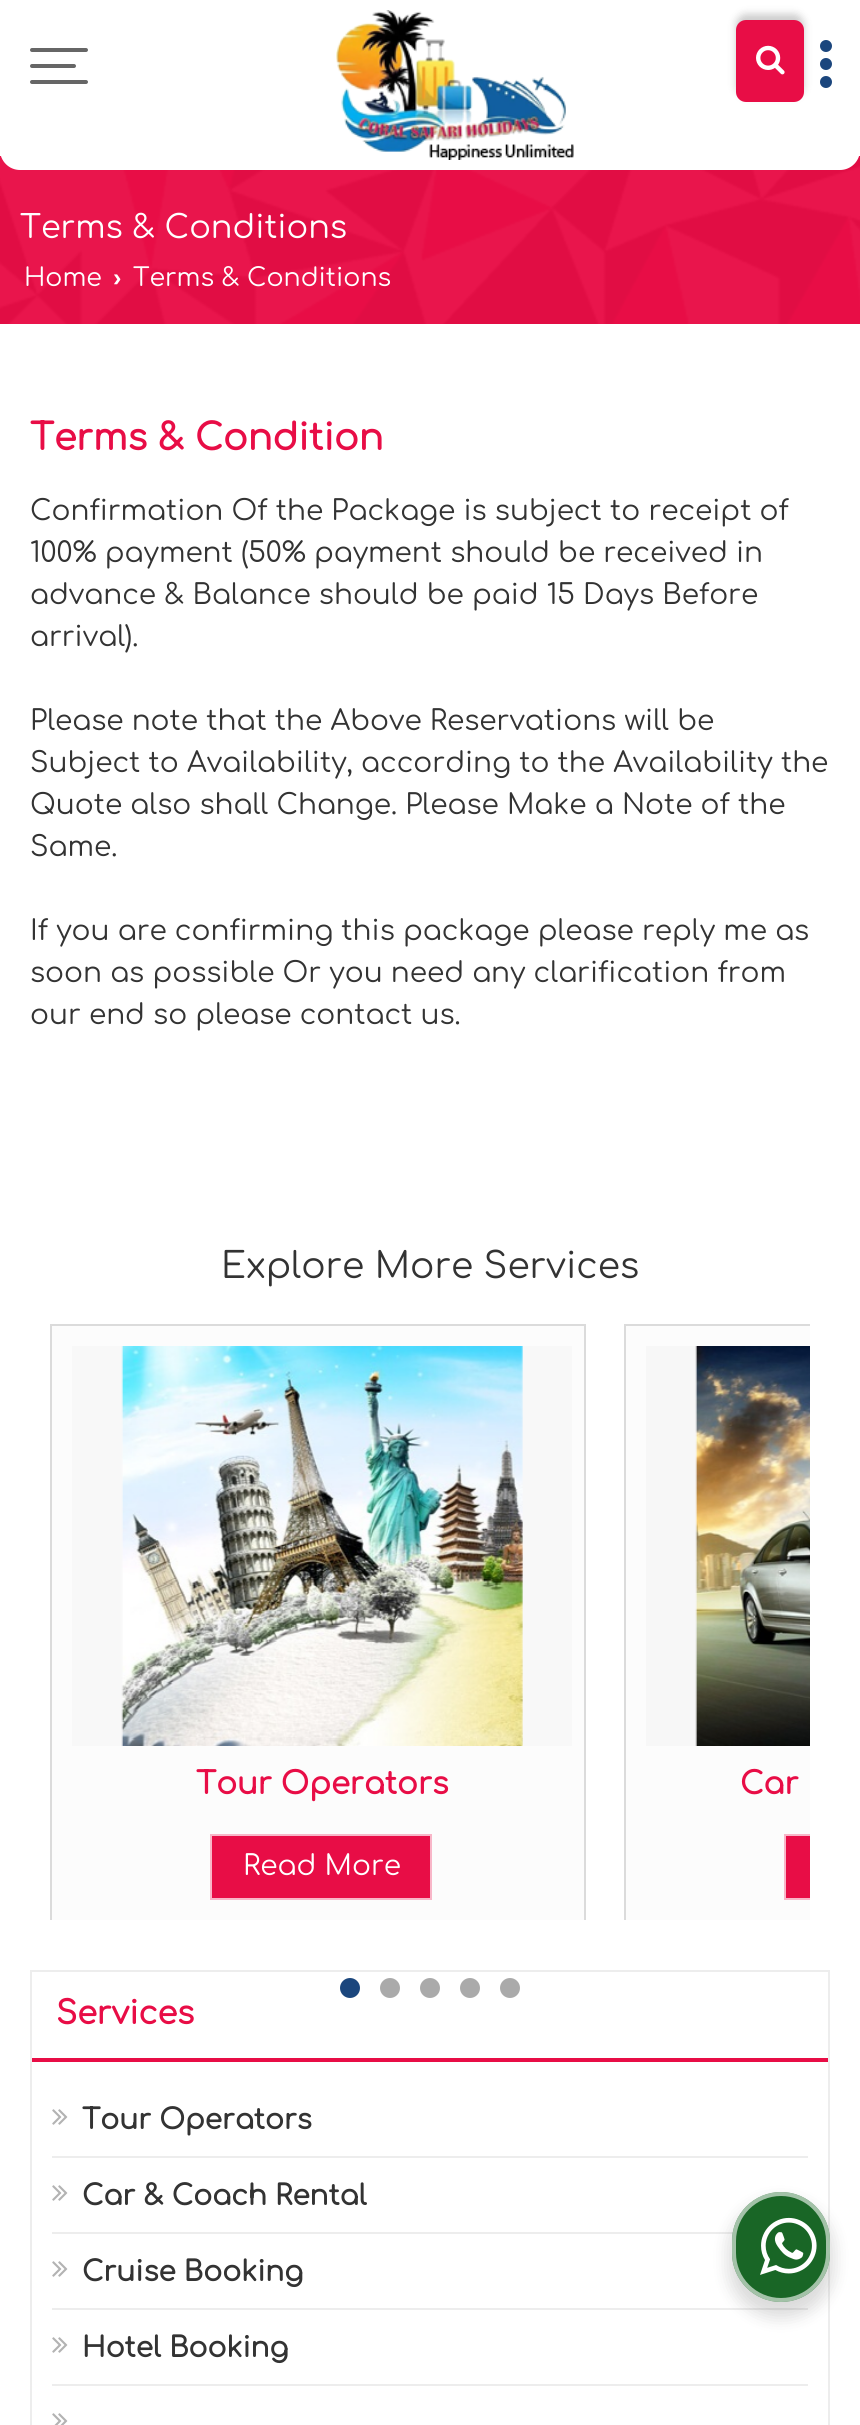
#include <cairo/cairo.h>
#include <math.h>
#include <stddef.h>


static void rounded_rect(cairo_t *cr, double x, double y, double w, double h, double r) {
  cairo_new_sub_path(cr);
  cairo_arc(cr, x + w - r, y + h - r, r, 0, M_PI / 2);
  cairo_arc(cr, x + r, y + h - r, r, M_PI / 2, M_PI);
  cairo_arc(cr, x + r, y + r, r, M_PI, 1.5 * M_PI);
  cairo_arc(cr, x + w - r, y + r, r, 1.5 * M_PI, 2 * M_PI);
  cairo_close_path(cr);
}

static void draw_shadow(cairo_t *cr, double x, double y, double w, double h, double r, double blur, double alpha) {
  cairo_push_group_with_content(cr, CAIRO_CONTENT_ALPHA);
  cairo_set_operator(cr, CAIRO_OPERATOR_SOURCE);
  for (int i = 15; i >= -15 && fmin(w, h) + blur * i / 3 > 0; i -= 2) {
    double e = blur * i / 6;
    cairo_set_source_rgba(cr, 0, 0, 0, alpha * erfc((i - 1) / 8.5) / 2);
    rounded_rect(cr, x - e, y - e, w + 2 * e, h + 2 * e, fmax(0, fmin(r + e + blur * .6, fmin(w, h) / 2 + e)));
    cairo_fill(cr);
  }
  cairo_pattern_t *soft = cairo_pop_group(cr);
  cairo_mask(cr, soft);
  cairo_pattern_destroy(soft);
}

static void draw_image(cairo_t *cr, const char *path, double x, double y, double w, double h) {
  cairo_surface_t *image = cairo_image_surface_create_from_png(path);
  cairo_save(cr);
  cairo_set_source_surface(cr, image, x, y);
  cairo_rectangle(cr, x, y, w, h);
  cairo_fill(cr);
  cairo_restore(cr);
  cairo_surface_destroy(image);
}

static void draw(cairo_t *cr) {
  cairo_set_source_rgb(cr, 1, 1, 1);
  cairo_paint(cr);
  cairo_set_source_rgb(cr, 232 / 255.0, 13 / 255.0, 70 / 255.0);
  cairo_rectangle(cr, 0, 156, 860, 168);
  cairo_fill(cr);
  draw_image(cr, "images/1.png", 0, 156, 860, 168);
  cairo_set_source_rgb(cr, 1, 1, 1);
  cairo_new_path(cr);
  cairo_move_to(cr, 0, 0);
  cairo_line_to(cr, 860, 0);
  cairo_line_to(cr, 860, 150);
  cairo_curve_to(cr, 860, 161, 851, 170, 840, 170);
  cairo_line_to(cr, 20, 170);
  cairo_curve_to(cr, 9, 170, 0, 161, 0, 150);
  cairo_close_path(cr);
  cairo_fill(cr);
  cairo_set_source_rgb(cr, 27 / 255.0, 70 / 255.0, 125 / 255.0);
  cairo_arc(cr, 826, 64, 6, 0, 2 * M_PI);
  cairo_fill(cr);
  cairo_arc(cr, 826, 46, 6, 0, 2 * M_PI);
  cairo_fill(cr);
  cairo_arc(cr, 826, 82, 6, 0, 2 * M_PI);
  cairo_fill(cr);
  draw_image(cr, "images/2.png", 336, 10, 238, 150);
  cairo_set_source_rgb(cr, 102 / 255.0, 102 / 255.0, 102 / 255.0);
  rounded_rect(cr, 30, 48, 58, 4, 2);
  cairo_fill(cr);
  rounded_rect(cr, 30, 64, 46, 4, 2);
  cairo_fill(cr);
  rounded_rect(cr, 30, 80, 58, 4, 2);
  cairo_fill(cr);
  cairo_set_source_rgb(cr, 0, 0, 0);
  draw_shadow(cr, 736, 14, 68, 82, 10, 4, 0.2);
  cairo_set_source_rgb(cr, 232 / 255.0, 13 / 255.0, 70 / 255.0);
  rounded_rect(cr, 736, 20, 68, 82, 10);
  cairo_fill(cr);
  draw_image(cr, "images/3.png", 756, 45, 29, 30);
  cairo_set_source_rgb(cr, 252 / 255.0, 252 / 255.0, 252 / 255.0);
  cairo_rectangle(cr, 52, 1326, 532, 594);
  cairo_fill(cr);
  cairo_save(cr);
  cairo_rectangle(cr, 50, 1324, 760, 596);
  cairo_clip(cr);
  cairo_rectangle(cr, 51, 1325, 534, 596);
  cairo_set_source_rgb(cr, 219 / 255.0, 219 / 255.0, 219 / 255.0);
  cairo_stroke(cr);
  cairo_restore(cr);
  cairo_set_source_rgb(cr, 248 / 255.0, 248 / 255.0, 248 / 255.0);
  cairo_rectangle(cr, 72, 1346, 500, 400);
  cairo_fill(cr);
  draw_image(cr, "images/4.png", 121, 1346, 402, 400);
  cairo_set_source_rgb(cr, 232 / 255.0, 13 / 255.0, 70 / 255.0);
  cairo_rectangle(cr, 211, 1835, 220, 64);
  cairo_fill_preserve(cr);
  cairo_set_source_rgb(cr, 248 / 255.0, 182 / 255.0, 200 / 255.0);
  cairo_stroke(cr);
  cairo_set_source_rgb(cr, 252 / 255.0, 252 / 255.0, 252 / 255.0);
  cairo_rectangle(cr, 626, 1326, 184, 594);
  cairo_fill(cr);
  cairo_save(cr);
  cairo_rectangle(cr, 50, 1324, 760, 596);
  cairo_clip(cr);
  cairo_rectangle(cr, 625, 1325, 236, 596);
  cairo_set_source_rgb(cr, 219 / 255.0, 219 / 255.0, 219 / 255.0);
  cairo_stroke(cr);
  cairo_restore(cr);
  cairo_set_source_rgb(cr, 247 / 255.0, 247 / 255.0, 247 / 255.0);
  cairo_rectangle(cr, 646, 1346, 51, 400);
  cairo_fill(cr);
  draw_image(cr, "images/5.png", 695, 1346, 115, 400);
  cairo_set_source_rgb(cr, 232 / 255.0, 13 / 255.0, 70 / 255.0);
  cairo_rectangle(cr, 786, 1836, 24, 62);
  cairo_fill(cr);
  cairo_save(cr);
  cairo_rectangle(cr, 50, 1324, 760, 596);
  cairo_clip(cr);
  cairo_rectangle(cr, 785, 1835, 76, 64);
  cairo_set_source_rgb(cr, 248 / 255.0, 182 / 255.0, 200 / 255.0);
  cairo_stroke(cr);
  cairo_restore(cr);
  cairo_rectangle(cr, 31, 1971, 798, 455);
  cairo_set_source_rgb(cr, 237 / 255.0, 237 / 255.0, 237 / 255.0);
  cairo_stroke(cr);
  cairo_set_source_rgb(cr, 27 / 255.0, 70 / 255.0, 125 / 255.0);
  cairo_arc(cr, 350, 1988, 10, 0, 2 * M_PI);
  cairo_fill(cr);
  cairo_set_source_rgb(cr, 170 / 255.0, 170 / 255.0, 170 / 255.0);
  cairo_arc(cr, 390, 1988, 10, 0, 2 * M_PI);
  cairo_fill(cr);
  cairo_arc(cr, 430, 1988, 10, 0, 2 * M_PI);
  cairo_fill(cr);
  cairo_arc(cr, 470, 1988, 10, 0, 2 * M_PI);
  cairo_fill(cr);
  cairo_arc(cr, 510, 1988, 10, 0, 2 * M_PI);
  cairo_fill(cr);
  cairo_set_source_rgb(cr, 232 / 255.0, 13 / 255.0, 70 / 255.0);
  cairo_rectangle(cr, 32, 2058, 796, 4);
  cairo_fill(cr);
  cairo_set_source_rgb(cr, 237 / 255.0, 237 / 255.0, 237 / 255.0);
  cairo_rectangle(cr, 52, 2156, 756, 2);
  cairo_fill(cr);
  draw_image(cr, "images/6.png", 52, 2109, 16, 16);
  cairo_rectangle(cr, 52, 2232, 681, 2);
  cairo_fill(cr);
  draw_image(cr, "images/6.png", 52, 2185, 16, 16);
  cairo_rectangle(cr, 52, 2308, 756, 2);
  cairo_fill(cr);
  draw_image(cr, "images/6.png", 52, 2261, 16, 16);
  cairo_rectangle(cr, 52, 2384, 756, 2);
  cairo_fill(cr);
  draw_image(cr, "images/6.png", 52, 2337, 16, 16);
  draw_image(cr, "images/7.png", 52, 2413, 16, 12);
  cairo_set_source_rgb(cr, 0, 0, 0);
  draw_shadow(cr, 728, 2200, 106, 118, 53, 8, 0.14);
  cairo_set_source_rgb(cr, 25 / 255.0, 102 / 255.0, 38 / 255.0);
  rounded_rect(cr, 732, 2192, 98, 110, 49);
  cairo_fill(cr);
  rounded_rect(cr, 734, 2194, 94, 106, 47);
  cairo_set_source_rgba(cr, 1, 1, 1, 0.6);
  cairo_set_line_width(cr, 4);
  cairo_stroke(cr);
  draw_image(cr, "images/8.png", 760, 2217, 57, 58);
  cairo_select_font_face(cr, "Comfortaa", CAIRO_FONT_SLANT_NORMAL, CAIRO_FONT_WEIGHT_NORMAL);
  cairo_set_font_size(cr, 32);
  cairo_set_source_rgb(cr, 1, 1, 1);
  cairo_move_to(cr, 20, 238);
  cairo_show_text(cr, "Terms & Conditions");
  cairo_set_font_size(cr, 25.25);
  cairo_move_to(cr, 24, 286);
  cairo_show_text(cr, "Home");
  cairo_select_font_face(cr, "Liberation Sans", CAIRO_FONT_SLANT_NORMAL, CAIRO_FONT_WEIGHT_BOLD);
  cairo_move_to(cr, 113, 286);
  cairo_show_text(cr, "›");
  cairo_select_font_face(cr, "Comfortaa", CAIRO_FONT_SLANT_NORMAL, CAIRO_FONT_WEIGHT_NORMAL);
  cairo_move_to(cr, 133, 286);
  cairo_show_text(cr, "Terms & Conditions");
  cairo_select_font_face(cr, "Comfortaa", CAIRO_FONT_SLANT_NORMAL, CAIRO_FONT_WEIGHT_BOLD);
  cairo_set_font_size(cr, 36.5);
  cairo_set_source_rgb(cr, 232 / 255.0, 13 / 255.0, 70 / 255.0);
  cairo_move_to(cr, 30, 450);
  cairo_show_text(cr, "Terms & Condition");
  cairo_select_font_face(cr, "Comfortaa", CAIRO_FONT_SLANT_NORMAL, CAIRO_FONT_WEIGHT_NORMAL);
  cairo_set_font_size(cr, 28);
  cairo_set_source_rgb(cr, 51 / 255.0, 51 / 255.0, 51 / 255.0);
  cairo_move_to(cr, 30, 520);
  cairo_show_text(cr, "Confirmation Of the Package is subject to receipt of");
  cairo_move_to(cr, 30, 562);
  cairo_show_text(cr, "100% payment (50% payment should be received in");
  cairo_move_to(cr, 30, 604);
  cairo_show_text(cr, "advance & Balance should be paid 15 Days Before");
  cairo_move_to(cr, 30, 646);
  cairo_show_text(cr, "arrival).");
  cairo_move_to(cr, 30, 730);
  cairo_show_text(cr, "Please note that the Above Reservations will be");
  cairo_move_to(cr, 30, 772);
  cairo_show_text(cr, "Subject to Availability, according to the Availability the");
  cairo_move_to(cr, 30, 814);
  cairo_show_text(cr, "Quote also shall Change. Please Make a Note of the");
  cairo_move_to(cr, 30, 856);
  cairo_show_text(cr, "Same.");
  cairo_move_to(cr, 30, 940);
  cairo_show_text(cr, "If you are confirming this package please reply me as");
  cairo_move_to(cr, 30, 982);
  cairo_show_text(cr, "soon as possible Or you need any clarification from");
  cairo_move_to(cr, 30, 1024);
  cairo_show_text(cr, "our end so please contact us.");
  cairo_set_font_size(cr, 36);
  cairo_move_to(cr, 221, 1278);
  cairo_show_text(cr, "Explore More Services");
  cairo_select_font_face(cr, "Comfortaa", CAIRO_FONT_SLANT_NORMAL, CAIRO_FONT_WEIGHT_BOLD);
  cairo_set_font_size(cr, 30.75);
  cairo_set_source_rgb(cr, 232 / 255.0, 13 / 255.0, 70 / 255.0);
  cairo_move_to(cr, 196, 1794);
  cairo_show_text(cr, "Tour Operators");
  cairo_select_font_face(cr, "Comfortaa", CAIRO_FONT_SLANT_NORMAL, CAIRO_FONT_WEIGHT_NORMAL);
  cairo_set_font_size(cr, 28);
  cairo_set_source_rgb(cr, 1, 1, 1);
  cairo_move_to(cr, 243, 1875);
  cairo_show_text(cr, "Read More");
  cairo_select_font_face(cr, "Comfortaa", CAIRO_FONT_SLANT_NORMAL, CAIRO_FONT_WEIGHT_BOLD);
  cairo_set_font_size(cr, 30.75);
  cairo_set_source_rgb(cr, 232 / 255.0, 13 / 255.0, 70 / 255.0);
  cairo_move_to(cr, 740, 1794);
  cairo_show_text(cr, "Car");
  cairo_set_font_size(cr, 32);
  cairo_move_to(cr, 56, 2024);
  cairo_show_text(cr, "Services");
  cairo_set_font_size(cr, 28);
  cairo_set_source_rgb(cr, 51 / 255.0, 51 / 255.0, 51 / 255.0);
  cairo_move_to(cr, 82, 2129);
  cairo_show_text(cr, "Tour Operators");
  cairo_move_to(cr, 82, 2205);
  cairo_show_text(cr, "Car & Coach Rental");
  cairo_move_to(cr, 82, 2281);
  cairo_show_text(cr, "Cruise Booking");
  cairo_move_to(cr, 82, 2357);
  cairo_show_text(cr, "Hotel Booking");
}

int main(void) {
  cairo_surface_t *surface = cairo_image_surface_create(CAIRO_FORMAT_RGB24, 860, 2425);
  cairo_t *cr = cairo_create(surface);
  cairo_font_options_t *options = cairo_font_options_create();
  cairo_font_options_set_hint_metrics(options, CAIRO_HINT_METRICS_OFF);
  cairo_font_options_set_hint_style(options, CAIRO_HINT_STYLE_NONE);
  cairo_set_font_options(cr, options);
  cairo_set_miter_limit(cr, 4);
  draw(cr);
  cairo_surface_write_to_png(surface, "out.png");
  cairo_font_options_destroy(options);
  cairo_destroy(cr);
  cairo_surface_destroy(surface);
  return 0;
}
